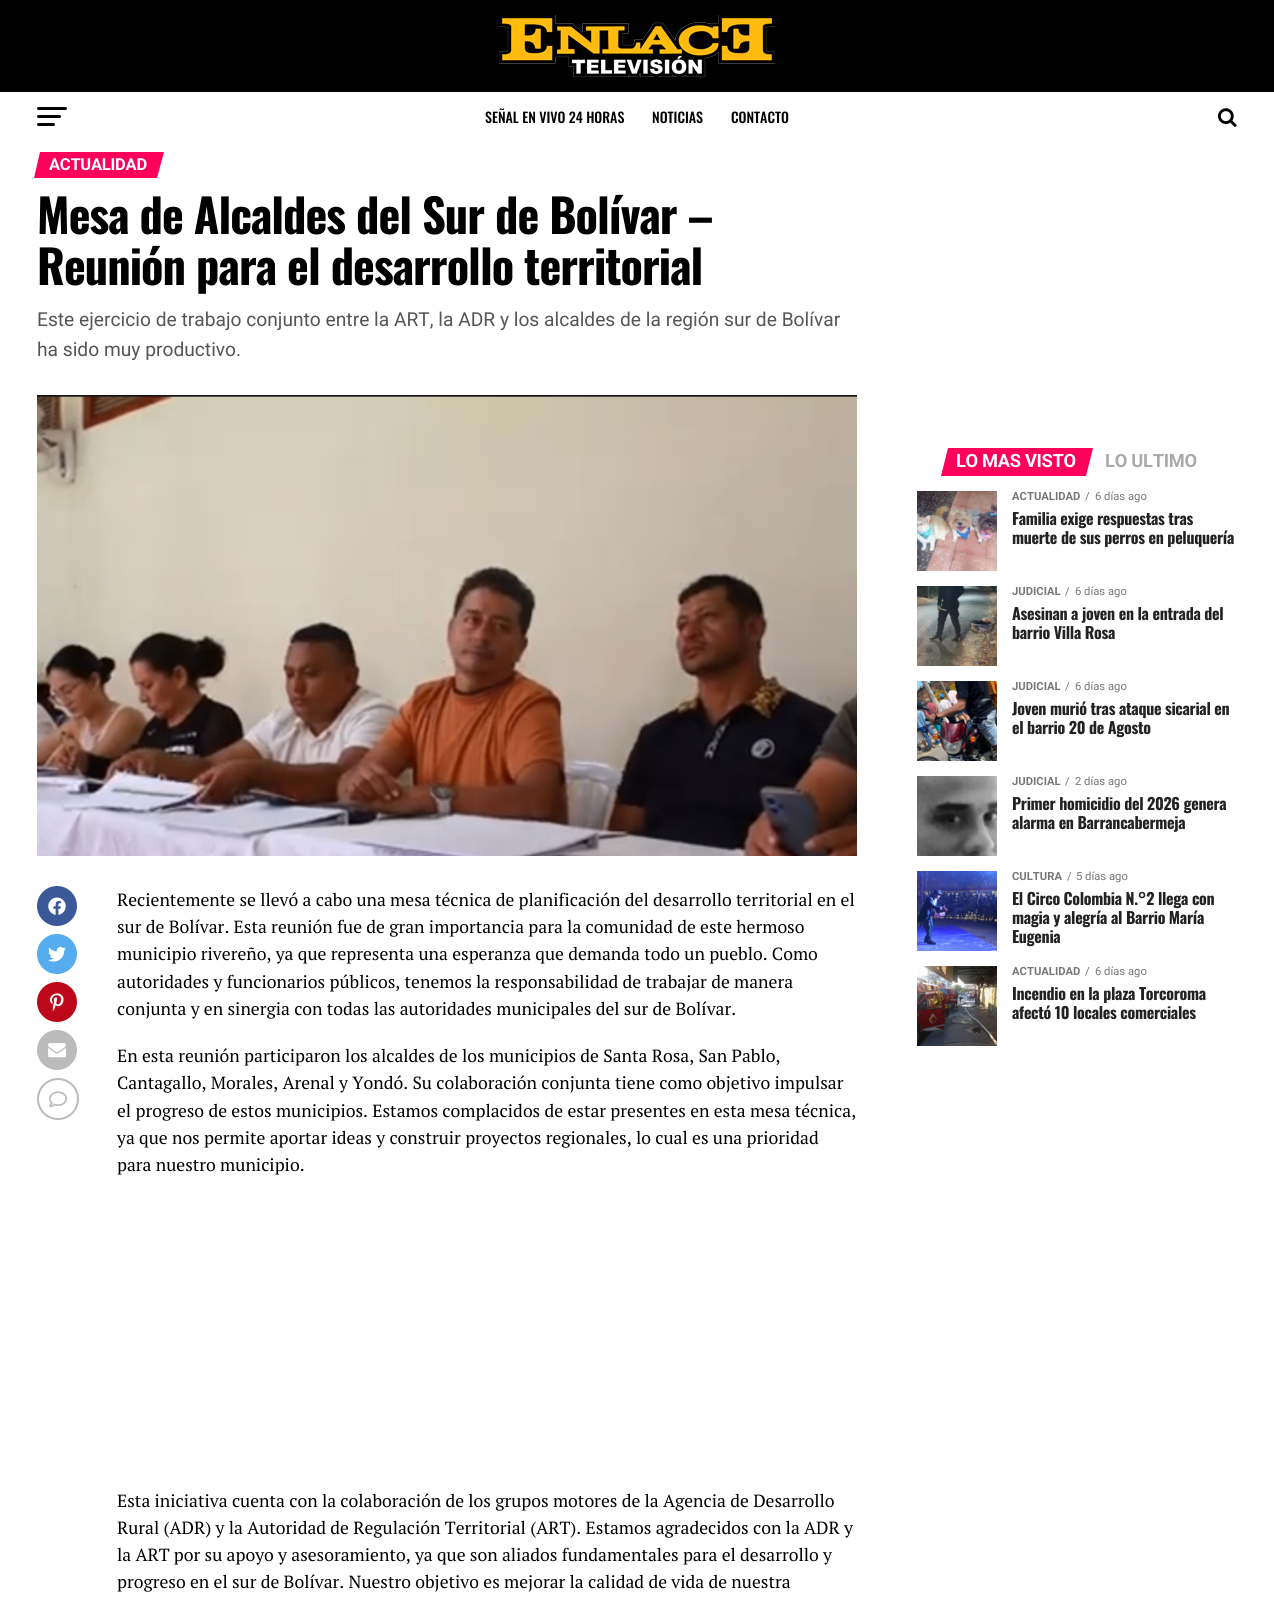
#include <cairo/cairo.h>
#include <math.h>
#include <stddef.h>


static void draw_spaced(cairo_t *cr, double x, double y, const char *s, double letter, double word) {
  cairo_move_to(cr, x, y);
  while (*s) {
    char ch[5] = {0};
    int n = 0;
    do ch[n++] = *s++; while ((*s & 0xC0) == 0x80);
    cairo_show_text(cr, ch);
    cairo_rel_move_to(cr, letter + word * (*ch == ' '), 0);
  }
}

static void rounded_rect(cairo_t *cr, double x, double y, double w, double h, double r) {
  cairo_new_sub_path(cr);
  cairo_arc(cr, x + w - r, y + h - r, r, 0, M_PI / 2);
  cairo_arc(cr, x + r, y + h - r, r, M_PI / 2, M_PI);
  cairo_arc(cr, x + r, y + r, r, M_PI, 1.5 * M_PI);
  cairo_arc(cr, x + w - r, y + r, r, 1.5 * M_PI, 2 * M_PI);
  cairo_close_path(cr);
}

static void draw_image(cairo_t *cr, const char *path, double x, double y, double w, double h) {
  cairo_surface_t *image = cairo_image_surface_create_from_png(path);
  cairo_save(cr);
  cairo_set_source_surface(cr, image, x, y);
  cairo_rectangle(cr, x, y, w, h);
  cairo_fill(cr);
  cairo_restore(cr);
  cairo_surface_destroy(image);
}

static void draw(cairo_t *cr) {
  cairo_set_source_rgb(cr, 1, 1, 1);
  cairo_paint(cr);
  cairo_set_source_rgb(cr, 0, 0, 0);
  cairo_rectangle(cr, 0, 0, 1274, 92);
  cairo_fill(cr);
  draw_image(cr, "images/1.png", 499, 15, 276, 62);
  rounded_rect(cr, 37, 107, 30, 3, 1.5);
  cairo_fill(cr);
  rounded_rect(cr, 37, 115, 24, 3, 1.5);
  cairo_fill(cr);
  rounded_rect(cr, 37, 123, 18, 3, 1.5);
  cairo_fill(cr);
  draw_image(cr, "images/2.png", 1218, 108, 19, 19);
  cairo_set_source_rgb(cr, 1, 0, 91 / 255.0);
  cairo_new_path(cr);
  cairo_move_to(cr, 40, 152);
  cairo_line_to(cr, 164, 152);
  cairo_line_to(cr, 157, 178);
  cairo_line_to(cr, 34, 178);
  cairo_close_path(cr);
  cairo_fill(cr);
  draw_image(cr, "images/3.png", 37, 395, 820, 461);
  cairo_set_source_rgb(cr, 59 / 255.0, 89 / 255.0, 152 / 255.0);
  cairo_arc(cr, 57, 906, 20, 0, 2 * M_PI);
  cairo_fill(cr);
  draw_image(cr, "images/4.png", 48, 897, 18, 18);
  cairo_set_source_rgb(cr, 85 / 255.0, 172 / 255.0, 238 / 255.0);
  cairo_arc(cr, 57, 954, 20, 0, 2 * M_PI);
  cairo_fill(cr);
  draw_image(cr, "images/5.png", 48, 946, 18, 16);
  cairo_set_source_rgb(cr, 189 / 255.0, 8 / 255.0, 28 / 255.0);
  cairo_arc(cr, 57, 1002, 20, 0, 2 * M_PI);
  cairo_fill(cr);
  draw_image(cr, "images/6.png", 50, 993, 14, 18);
  cairo_set_source_rgb(cr, 187 / 255.0, 187 / 255.0, 187 / 255.0);
  cairo_arc(cr, 57, 1050, 20, 0, 2 * M_PI);
  cairo_fill(cr);
  draw_image(cr, "images/7.png", 48, 1043, 18, 15);
  cairo_arc(cr, 58, 1099, 20, 0, 2 * M_PI);
  cairo_stroke(cr);
  draw_image(cr, "images/8.png", 49, 1091, 18, 17);
  cairo_set_source_rgb(cr, 1, 0, 91 / 255.0);
  cairo_new_path(cr);
  cairo_move_to(cr, 948, 448);
  cairo_line_to(cr, 1093, 448);
  cairo_line_to(cr, 1086, 476);
  cairo_line_to(cr, 941, 476);
  cairo_close_path(cr);
  cairo_fill(cr);
  draw_image(cr, "images/9.png", 917, 491, 80, 80);
  draw_image(cr, "images/10.png", 917, 586, 80, 80);
  draw_image(cr, "images/11.png", 917, 681, 80, 80);
  draw_image(cr, "images/12.png", 917, 776, 80, 80);
  draw_image(cr, "images/13.png", 917, 871, 80, 80);
  draw_image(cr, "images/14.png", 917, 966, 80, 80);
  cairo_select_font_face(cr, "Oswald Medium", CAIRO_FONT_SLANT_NORMAL, CAIRO_FONT_WEIGHT_NORMAL);
  cairo_set_font_size(cr, 14);
  cairo_set_source_rgb(cr, 0, 0, 0);
  cairo_move_to(cr, 485, 123);
  cairo_show_text(cr, "SEÑAL EN VIVO 24 HORAS");
  cairo_move_to(cr, 652, 123);
  cairo_show_text(cr, "NOTICIAS");
  cairo_move_to(cr, 731, 123);
  cairo_show_text(cr, "CONTACTO");
  cairo_select_font_face(cr, "Roboto", CAIRO_FONT_SLANT_NORMAL, CAIRO_FONT_WEIGHT_BOLD);
  cairo_set_font_size(cr, 16.5);
  cairo_set_source_rgb(cr, 1, 1, 1);
  draw_spaced(cr, 49, 170, "ACTUALIDAD", -0.25, 0);
  cairo_select_font_face(cr, "Oswald", CAIRO_FONT_SLANT_NORMAL, CAIRO_FONT_WEIGHT_BOLD);
  cairo_set_font_size(cr, 46.4);
  cairo_set_source_rgb(cr, 0, 0, 0);
  draw_spaced(cr, 37, 234, "Mesa de Alcaldes del Sur de Bolívar –", -0.95, 0);
  draw_spaced(cr, 37, 285, "Reunión para el desarrollo territorial", -0.95, 0);
  cairo_select_font_face(cr, "Roboto", CAIRO_FONT_SLANT_NORMAL, CAIRO_FONT_WEIGHT_NORMAL);
  cairo_set_font_size(cr, 19.2);
  cairo_set_source_rgb(cr, 85 / 255.0, 85 / 255.0, 85 / 255.0);
  cairo_move_to(cr, 37, 326);
  cairo_show_text(cr, "Este ejercicio de trabajo conjunto entre la ART, la ADR y los alcaldes de la región sur de Bolívar");
  cairo_move_to(cr, 37, 356);
  cairo_show_text(cr, "ha sido muy productivo.");
  cairo_select_font_face(cr, "PT Serif", CAIRO_FONT_SLANT_NORMAL, CAIRO_FONT_WEIGHT_NORMAL);
  cairo_set_font_size(cr, 17.6);
  cairo_set_source_rgb(cr, 0, 0, 0);
  cairo_move_to(cr, 117, 906);
  cairo_show_text(cr, "Recientemente se llevó a cabo una mesa técnica de planificación del desarrollo territorial en el");
  cairo_move_to(cr, 117, 933);
  cairo_show_text(cr, "sur de Bolívar. Esta reunión fue de gran importancia para la comunidad de este hermoso");
  cairo_move_to(cr, 117, 960);
  cairo_show_text(cr, "municipio rivereño, ya que representa una esperanza que demanda todo un pueblo. Como");
  cairo_move_to(cr, 117, 988);
  cairo_show_text(cr, "autoridades y funcionarios públicos, tenemos la responsabilidad de trabajar de manera");
  cairo_move_to(cr, 117, 1015);
  cairo_show_text(cr, "conjunta y en sinergia con todas las autoridades municipales del sur de Bolívar.");
  cairo_move_to(cr, 117, 1062);
  cairo_show_text(cr, "En esta reunión participaron los alcaldes de los municipios de Santa Rosa, San Pablo,");
  cairo_move_to(cr, 117, 1089);
  cairo_show_text(cr, "Cantagallo, Morales, Arenal y Yondó. Su colaboración conjunta tiene como objetivo impulsar");
  cairo_move_to(cr, 117, 1117);
  cairo_show_text(cr, "el progreso de estos municipios. Estamos complacidos de estar presentes en esta mesa técnica,");
  cairo_move_to(cr, 117, 1144);
  cairo_show_text(cr, "ya que nos permite aportar ideas y construir proyectos regionales, lo cual es una prioridad");
  cairo_move_to(cr, 117, 1171);
  cairo_show_text(cr, "para nuestro municipio.");
  cairo_move_to(cr, 117, 1507);
  cairo_show_text(cr, "Esta iniciativa cuenta con la colaboración de los grupos motores de la Agencia de Desarrollo");
  cairo_move_to(cr, 117, 1534);
  cairo_show_text(cr, "Rural (ADR) y la Autoridad de Regulación Territorial (ART). Estamos agradecidos con la ADR y");
  cairo_move_to(cr, 117, 1561);
  cairo_show_text(cr, "la ART por su apoyo y asesoramiento, ya que son aliados fundamentales para el desarrollo y");
  cairo_move_to(cr, 117, 1588);
  cairo_show_text(cr, "progreso en el sur de Bolívar. Nuestro objetivo es mejorar la calidad de vida de nuestra");
  cairo_select_font_face(cr, "Roboto", CAIRO_FONT_SLANT_NORMAL, CAIRO_FONT_WEIGHT_BOLD);
  cairo_set_font_size(cr, 18.25);
  cairo_set_source_rgb(cr, 1, 1, 1);
  draw_spaced(cr, 956, 467, "LO MAS VISTO", -0.3, 0);
  cairo_set_source_rgb(cr, 170 / 255.0, 170 / 255.0, 170 / 255.0);
  draw_spaced(cr, 1105, 467, "LO ULTIMO", -0.25, 0);
  cairo_set_font_size(cr, 11.25);
  cairo_set_source_rgb(cr, 119 / 255.0, 119 / 255.0, 119 / 255.0);
  cairo_move_to(cr, 1012, 500);
  cairo_show_text(cr, "ACTUALIDAD");
  cairo_select_font_face(cr, "Roboto", CAIRO_FONT_SLANT_NORMAL, CAIRO_FONT_WEIGHT_NORMAL);
  cairo_move_to(cr, 1085, 500);
  cairo_show_text(cr, "/");
  cairo_move_to(cr, 1095, 500);
  cairo_show_text(cr, "6 días ago");
  cairo_select_font_face(cr, "Oswald", CAIRO_FONT_SLANT_NORMAL, CAIRO_FONT_WEIGHT_BOLD);
  cairo_set_font_size(cr, 16);
  cairo_set_source_rgb(cr, 34 / 255.0, 34 / 255.0, 34 / 255.0);
  draw_spaced(cr, 1012, 525, "Familia exige respuestas tras", -0.3, 0);
  draw_spaced(cr, 1012, 544, "muerte de sus perros en peluquería", -0.3, 0);
  cairo_select_font_face(cr, "Roboto", CAIRO_FONT_SLANT_NORMAL, CAIRO_FONT_WEIGHT_BOLD);
  cairo_set_font_size(cr, 11.25);
  cairo_set_source_rgb(cr, 119 / 255.0, 119 / 255.0, 119 / 255.0);
  cairo_move_to(cr, 1012, 595);
  cairo_show_text(cr, "JUDICIAL");
  cairo_select_font_face(cr, "Roboto", CAIRO_FONT_SLANT_NORMAL, CAIRO_FONT_WEIGHT_NORMAL);
  cairo_move_to(cr, 1065, 595);
  cairo_show_text(cr, "/");
  cairo_move_to(cr, 1075, 595);
  cairo_show_text(cr, "6 días ago");
  cairo_select_font_face(cr, "Oswald", CAIRO_FONT_SLANT_NORMAL, CAIRO_FONT_WEIGHT_BOLD);
  cairo_set_font_size(cr, 16);
  cairo_set_source_rgb(cr, 34 / 255.0, 34 / 255.0, 34 / 255.0);
  draw_spaced(cr, 1012, 620, "Asesinan a joven en la entrada del", -0.3, 0);
  draw_spaced(cr, 1012, 639, "barrio Villa Rosa", -0.3, 0);
  cairo_select_font_face(cr, "Roboto", CAIRO_FONT_SLANT_NORMAL, CAIRO_FONT_WEIGHT_BOLD);
  cairo_set_font_size(cr, 11.25);
  cairo_set_source_rgb(cr, 119 / 255.0, 119 / 255.0, 119 / 255.0);
  cairo_move_to(cr, 1012, 690);
  cairo_show_text(cr, "JUDICIAL");
  cairo_select_font_face(cr, "Roboto", CAIRO_FONT_SLANT_NORMAL, CAIRO_FONT_WEIGHT_NORMAL);
  cairo_move_to(cr, 1065, 690);
  cairo_show_text(cr, "/");
  cairo_move_to(cr, 1075, 690);
  cairo_show_text(cr, "6 días ago");
  cairo_select_font_face(cr, "Oswald", CAIRO_FONT_SLANT_NORMAL, CAIRO_FONT_WEIGHT_BOLD);
  cairo_set_font_size(cr, 16);
  cairo_set_source_rgb(cr, 34 / 255.0, 34 / 255.0, 34 / 255.0);
  draw_spaced(cr, 1012, 715, "Joven murió tras ataque sicarial en", -0.3, 0);
  draw_spaced(cr, 1012, 734, "el barrio 20 de Agosto", -0.3, 0);
  cairo_select_font_face(cr, "Roboto", CAIRO_FONT_SLANT_NORMAL, CAIRO_FONT_WEIGHT_BOLD);
  cairo_set_font_size(cr, 11.25);
  cairo_set_source_rgb(cr, 119 / 255.0, 119 / 255.0, 119 / 255.0);
  cairo_move_to(cr, 1012, 785);
  cairo_show_text(cr, "JUDICIAL");
  cairo_select_font_face(cr, "Roboto", CAIRO_FONT_SLANT_NORMAL, CAIRO_FONT_WEIGHT_NORMAL);
  cairo_move_to(cr, 1065, 785);
  cairo_show_text(cr, "/");
  cairo_move_to(cr, 1075, 785);
  cairo_show_text(cr, "2 días ago");
  cairo_select_font_face(cr, "Oswald", CAIRO_FONT_SLANT_NORMAL, CAIRO_FONT_WEIGHT_BOLD);
  cairo_set_font_size(cr, 16);
  cairo_set_source_rgb(cr, 34 / 255.0, 34 / 255.0, 34 / 255.0);
  draw_spaced(cr, 1012, 810, "Primer homicidio del 2026 genera", -0.3, 0);
  draw_spaced(cr, 1012, 829, "alarma en Barrancabermeja", -0.3, 0);
  cairo_select_font_face(cr, "Roboto", CAIRO_FONT_SLANT_NORMAL, CAIRO_FONT_WEIGHT_BOLD);
  cairo_set_font_size(cr, 11.25);
  cairo_set_source_rgb(cr, 119 / 255.0, 119 / 255.0, 119 / 255.0);
  cairo_move_to(cr, 1012, 880);
  cairo_show_text(cr, "CULTURA");
  cairo_select_font_face(cr, "Roboto", CAIRO_FONT_SLANT_NORMAL, CAIRO_FONT_WEIGHT_NORMAL);
  cairo_move_to(cr, 1067, 880);
  cairo_show_text(cr, "/");
  cairo_move_to(cr, 1076, 880);
  cairo_show_text(cr, "5 días ago");
  cairo_select_font_face(cr, "Oswald", CAIRO_FONT_SLANT_NORMAL, CAIRO_FONT_WEIGHT_BOLD);
  cairo_set_font_size(cr, 16);
  cairo_set_source_rgb(cr, 34 / 255.0, 34 / 255.0, 34 / 255.0);
  draw_spaced(cr, 1012, 905, "El Circo Colombia N.°2 llega con", -0.3, 0);
  draw_spaced(cr, 1012, 924, "magia y alegría al Barrio María", -0.3, 0);
  draw_spaced(cr, 1012, 943, "Eugenia", -0.3, 0);
  cairo_select_font_face(cr, "Roboto", CAIRO_FONT_SLANT_NORMAL, CAIRO_FONT_WEIGHT_BOLD);
  cairo_set_font_size(cr, 11.25);
  cairo_set_source_rgb(cr, 119 / 255.0, 119 / 255.0, 119 / 255.0);
  cairo_move_to(cr, 1012, 975);
  cairo_show_text(cr, "ACTUALIDAD");
  cairo_select_font_face(cr, "Roboto", CAIRO_FONT_SLANT_NORMAL, CAIRO_FONT_WEIGHT_NORMAL);
  cairo_move_to(cr, 1085, 975);
  cairo_show_text(cr, "/");
  cairo_move_to(cr, 1095, 975);
  cairo_show_text(cr, "6 días ago");
  cairo_select_font_face(cr, "Oswald", CAIRO_FONT_SLANT_NORMAL, CAIRO_FONT_WEIGHT_BOLD);
  cairo_set_font_size(cr, 16);
  cairo_set_source_rgb(cr, 34 / 255.0, 34 / 255.0, 34 / 255.0);
  draw_spaced(cr, 1012, 1000, "Incendio en la plaza Torcoroma", -0.3, 0);
  draw_spaced(cr, 1012, 1019, "afectó 10 locales comerciales", -0.3, 0);
}

int main(void) {
  cairo_surface_t *surface = cairo_image_surface_create(CAIRO_FORMAT_RGB24, 1274, 1607);
  cairo_t *cr = cairo_create(surface);
  cairo_font_options_t *options = cairo_font_options_create();
  cairo_font_options_set_hint_metrics(options, CAIRO_HINT_METRICS_OFF);
  cairo_font_options_set_hint_style(options, CAIRO_HINT_STYLE_NONE);
  cairo_set_font_options(cr, options);
  cairo_set_miter_limit(cr, 4);
  draw(cr);
  cairo_surface_write_to_png(surface, "out.png");
  cairo_font_options_destroy(options);
  cairo_destroy(cr);
  cairo_surface_destroy(surface);
  return 0;
}
